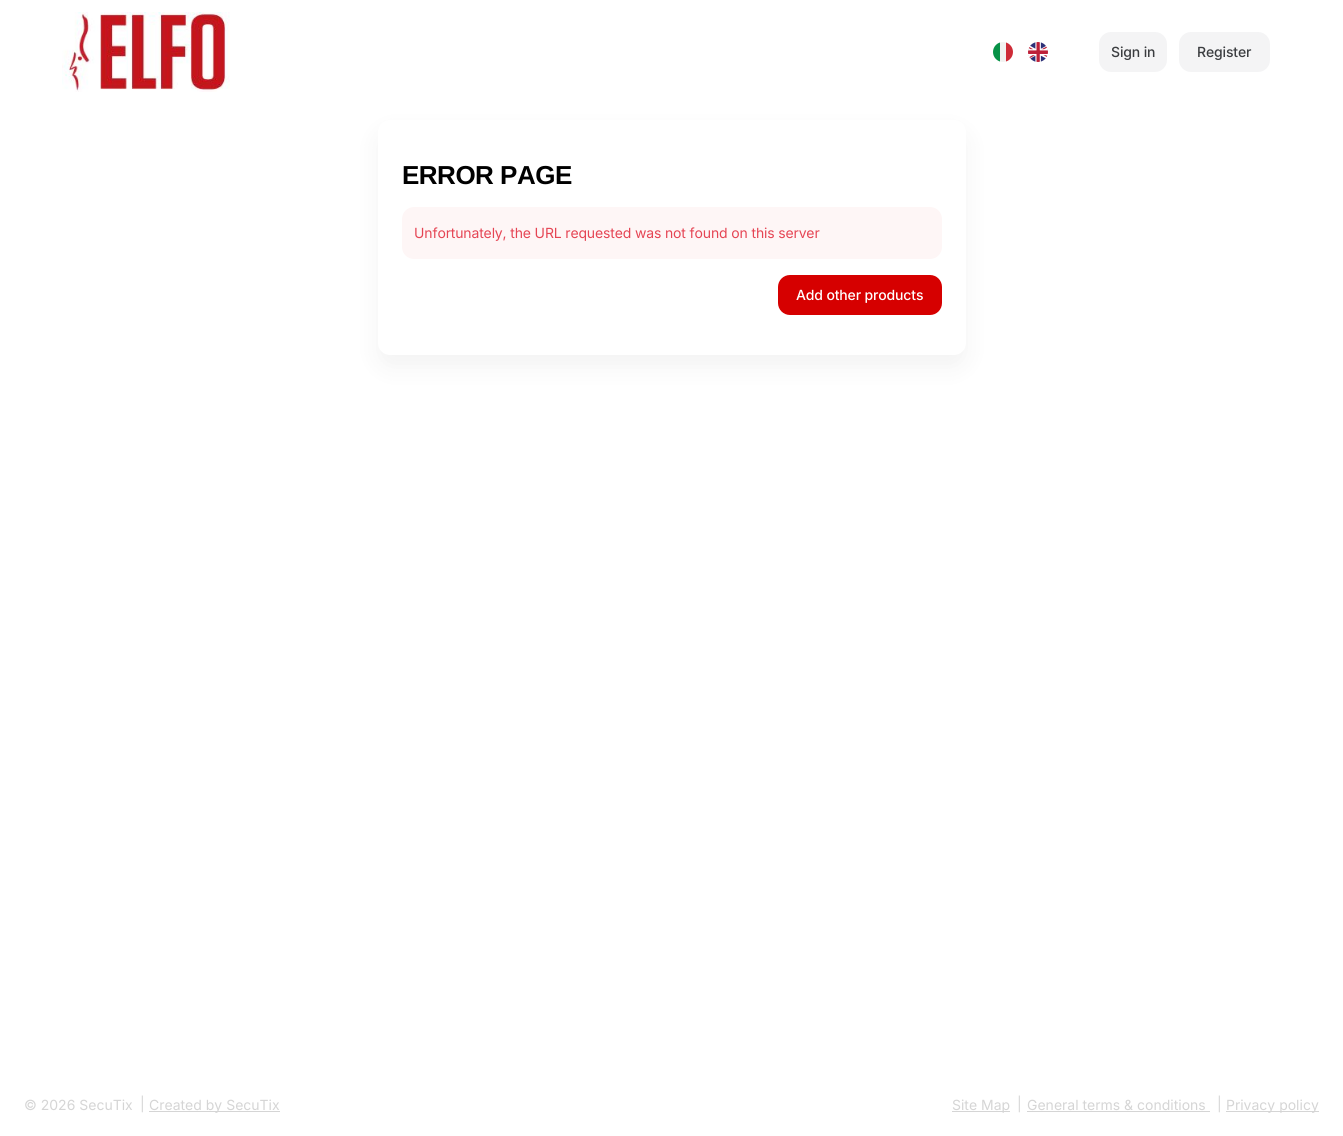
#include <cairo/cairo.h>
#include <math.h>
#include <stddef.h>


static void draw_spaced(cairo_t *cr, double x, double y, const char *s, double letter, double word) {
  cairo_move_to(cr, x, y);
  while (*s) {
    char ch[5] = {0};
    int n = 0;
    do ch[n++] = *s++; while ((*s & 0xC0) == 0x80);
    cairo_show_text(cr, ch);
    cairo_rel_move_to(cr, letter + word * (*ch == ' '), 0);
  }
}

static void rounded_rect(cairo_t *cr, double x, double y, double w, double h, double r) {
  cairo_new_sub_path(cr);
  cairo_arc(cr, x + w - r, y + h - r, r, 0, M_PI / 2);
  cairo_arc(cr, x + r, y + h - r, r, M_PI / 2, M_PI);
  cairo_arc(cr, x + r, y + r, r, M_PI, 1.5 * M_PI);
  cairo_arc(cr, x + w - r, y + r, r, 1.5 * M_PI, 2 * M_PI);
  cairo_close_path(cr);
}

static void draw_shadow(cairo_t *cr, double x, double y, double w, double h, double r, double blur, double alpha) {
  cairo_push_group_with_content(cr, CAIRO_CONTENT_ALPHA);
  cairo_set_operator(cr, CAIRO_OPERATOR_SOURCE);
  for (int i = 15; i >= -15 && fmin(w, h) + blur * i / 3 > 0; i -= 2) {
    double e = blur * i / 6;
    cairo_set_source_rgba(cr, 0, 0, 0, alpha * erfc((i - 1) / 8.5) / 2);
    rounded_rect(cr, x - e, y - e, w + 2 * e, h + 2 * e, fmax(0, fmin(r + e + blur * .6, fmin(w, h) / 2 + e)));
    cairo_fill(cr);
  }
  cairo_pattern_t *soft = cairo_pop_group(cr);
  cairo_mask(cr, soft);
  cairo_pattern_destroy(soft);
}

static void draw_image(cairo_t *cr, const char *path, double x, double y, double w, double h) {
  cairo_surface_t *image = cairo_image_surface_create_from_png(path);
  cairo_save(cr);
  cairo_set_source_surface(cr, image, x, y);
  cairo_rectangle(cr, x, y, w, h);
  cairo_fill(cr);
  cairo_restore(cr);
  cairo_surface_destroy(image);
}

static void draw(cairo_t *cr) {
  cairo_set_source_rgb(cr, 1, 1, 1);
  cairo_paint(cr);
  draw_image(cr, "images/1.png", 62, 12, 168, 80);
  cairo_save(cr);
  rounded_rect(cr, 993, 42, 20, 20, 10);
  cairo_clip(cr);
  cairo_set_source_rgb(cr, 7 / 255.0, 146 / 255.0, 71 / 255.0);
  cairo_rectangle(cr, 993, 42, 7, 20);
  cairo_fill(cr);
  cairo_set_source_rgb(cr, 242 / 255.0, 242 / 255.0, 241 / 255.0);
  cairo_rectangle(cr, 1000, 42, 6, 20);
  cairo_fill(cr);
  cairo_set_source_rgb(cr, 206 / 255.0, 43 / 255.0, 55 / 255.0);
  cairo_rectangle(cr, 1006, 42, 7, 20);
  cairo_fill(cr);
  cairo_restore(cr);
  draw_image(cr, "images/2.png", 1028, 42, 20, 20);
  cairo_set_source_rgb(cr, 244 / 255.0, 244 / 255.0, 245 / 255.0);
  rounded_rect(cr, 1099, 32, 68, 40, 12);
  cairo_fill(cr);
  rounded_rect(cr, 1179, 32, 91, 40, 12);
  cairo_fill(cr);
  cairo_set_source_rgb(cr, 0, 0, 0);
  draw_shadow(cr, 378, 132, 588, 235, 12, 12, 0.05);
  cairo_set_source_rgb(cr, 1, 1, 1);
  rounded_rect(cr, 378, 120, 588, 235, 12);
  cairo_fill(cr);
  cairo_set_source_rgb(cr, 254 / 255.0, 246 / 255.0, 246 / 255.0);
  rounded_rect(cr, 402, 207, 540, 52, 12);
  cairo_fill(cr);
  cairo_set_source_rgb(cr, 214 / 255.0, 0, 0);
  rounded_rect(cr, 778, 275, 164, 40, 12);
  cairo_fill(cr);
  cairo_set_source_rgb(cr, 213 / 255.0, 213 / 255.0, 213 / 255.0);
  cairo_rectangle(cr, 149, 1111, 131, 1);
  cairo_fill(cr);
  cairo_rectangle(cr, 952, 1111, 58, 1);
  cairo_fill(cr);
  cairo_rectangle(cr, 1027, 1111, 183, 1);
  cairo_fill(cr);
  cairo_rectangle(cr, 1226, 1111, 93, 1);
  cairo_fill(cr);
  cairo_select_font_face(cr, "Inter Medium", CAIRO_FONT_SLANT_NORMAL, CAIRO_FONT_WEIGHT_NORMAL);
  cairo_set_font_size(cr, 14);
  cairo_set_source_rgb(cr, 59 / 255.0, 61 / 255.0, 64 / 255.0);
  draw_spaced(cr, 1111, 57, "Sign in", -0.15, 0);
  draw_spaced(cr, 1197, 57, "Register", -0.15, 0);
  cairo_select_font_face(cr, "Liberation Sans", CAIRO_FONT_SLANT_NORMAL, CAIRO_FONT_WEIGHT_BOLD);
  cairo_set_font_size(cr, 26);
  cairo_set_source_rgb(cr, 0, 0, 0);
  draw_spaced(cr, 402, 184, "ERROR PAGE", -0.5, 0);
  cairo_select_font_face(cr, "Inter", CAIRO_FONT_SLANT_NORMAL, CAIRO_FONT_WEIGHT_NORMAL);
  cairo_set_font_size(cr, 14);
  cairo_set_source_rgb(cr, 229 / 255.0, 69 / 255.0, 84 / 255.0);
  draw_spaced(cr, 414, 238, "Unfortunately, the URL requested was not found on this server", -0.15, 0);
  cairo_select_font_face(cr, "Inter Medium", CAIRO_FONT_SLANT_NORMAL, CAIRO_FONT_WEIGHT_NORMAL);
  cairo_set_source_rgb(cr, 1, 1, 1);
  draw_spaced(cr, 796, 300, "Add other products", -0.15, 0);
  cairo_select_font_face(cr, "Inter", CAIRO_FONT_SLANT_NORMAL, CAIRO_FONT_WEIGHT_NORMAL);
  cairo_set_source_rgb(cr, 213 / 255.0, 213 / 255.0, 213 / 255.0);
  cairo_move_to(cr, 24, 1110);
  cairo_show_text(cr, "© 2026 SecuTix");
  cairo_move_to(cr, 140, 1109);
  cairo_show_text(cr, "|");
  cairo_move_to(cr, 149, 1110);
  cairo_show_text(cr, "Created by SecuTix");
  cairo_move_to(cr, 952, 1110);
  cairo_show_text(cr, "Site Map");
  cairo_move_to(cr, 1017, 1109);
  cairo_show_text(cr, "|");
  cairo_move_to(cr, 1027, 1110);
  cairo_show_text(cr, "General terms & conditions");
  cairo_move_to(cr, 1217, 1109);
  cairo_show_text(cr, "|");
  cairo_move_to(cr, 1226, 1110);
  cairo_show_text(cr, "Privacy policy");
}

int main(void) {
  cairo_surface_t *surface = cairo_image_surface_create(CAIRO_FORMAT_RGB24, 1343, 1136);
  cairo_t *cr = cairo_create(surface);
  cairo_font_options_t *options = cairo_font_options_create();
  cairo_font_options_set_hint_metrics(options, CAIRO_HINT_METRICS_OFF);
  cairo_font_options_set_hint_style(options, CAIRO_HINT_STYLE_NONE);
  cairo_set_font_options(cr, options);
  cairo_set_miter_limit(cr, 4);
  draw(cr);
  cairo_surface_write_to_png(surface, "out.png");
  cairo_font_options_destroy(options);
  cairo_destroy(cr);
  cairo_surface_destroy(surface);
  return 0;
}
